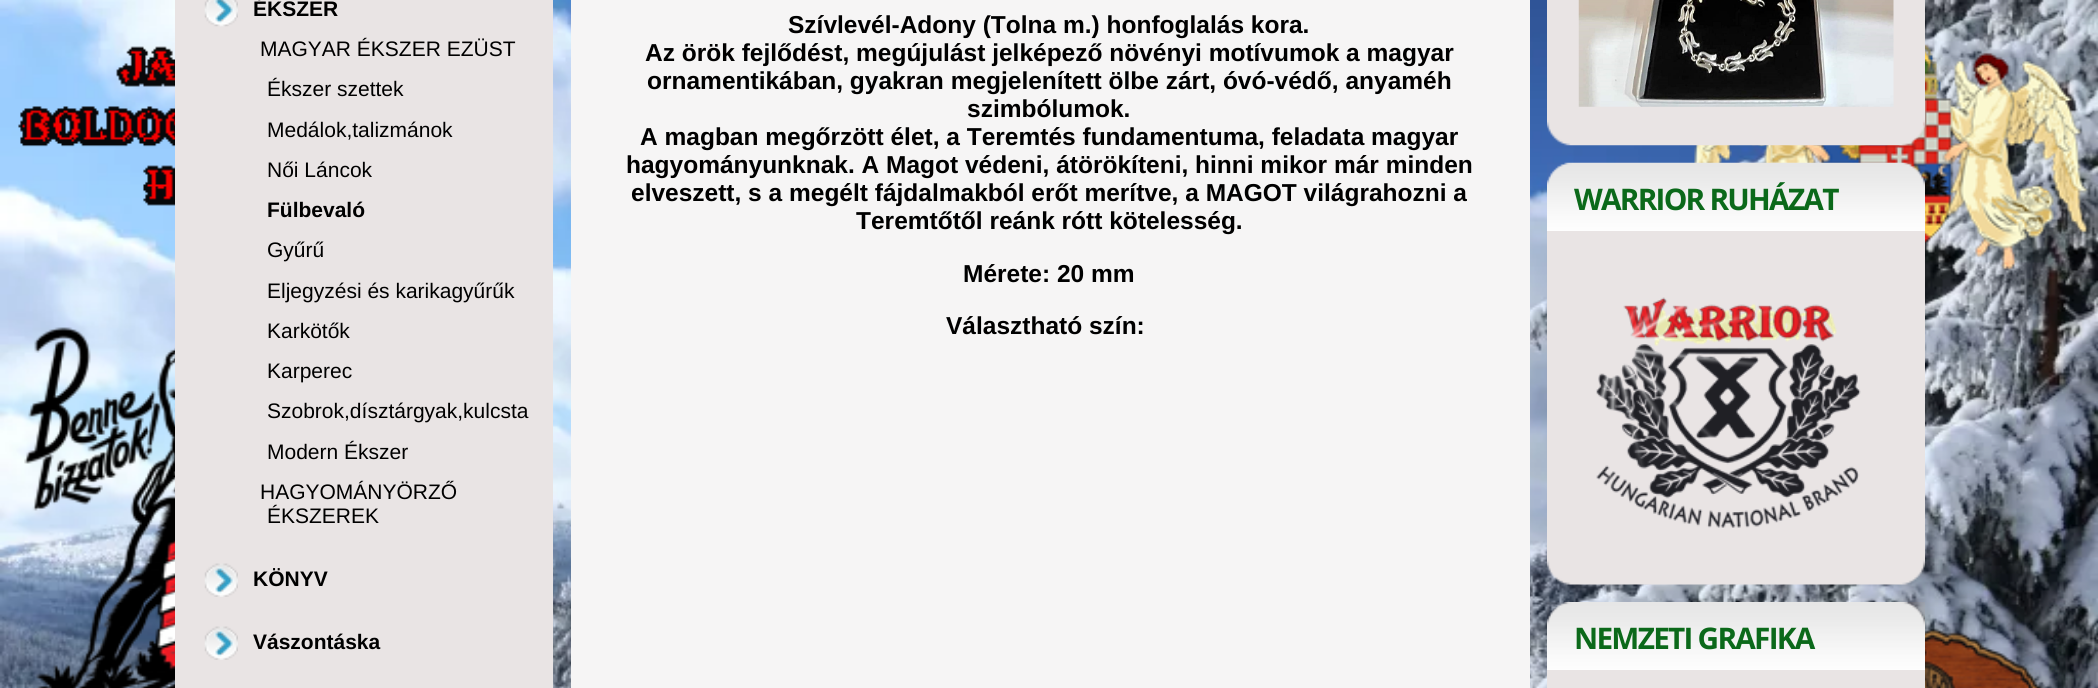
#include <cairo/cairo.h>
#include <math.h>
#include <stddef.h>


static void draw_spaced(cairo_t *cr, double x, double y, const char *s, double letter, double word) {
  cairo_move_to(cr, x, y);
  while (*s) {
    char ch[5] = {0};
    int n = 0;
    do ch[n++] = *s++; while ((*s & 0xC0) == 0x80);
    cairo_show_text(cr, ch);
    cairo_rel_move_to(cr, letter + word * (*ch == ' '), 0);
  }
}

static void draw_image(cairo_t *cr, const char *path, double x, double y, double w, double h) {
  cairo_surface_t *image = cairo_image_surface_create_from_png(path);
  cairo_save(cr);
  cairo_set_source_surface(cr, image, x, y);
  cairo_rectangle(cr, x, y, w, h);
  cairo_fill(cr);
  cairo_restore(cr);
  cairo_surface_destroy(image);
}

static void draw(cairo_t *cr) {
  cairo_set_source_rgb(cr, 1, 1, 1);
  cairo_paint(cr);
  draw_image(cr, "images/1.png", 0, 0, 2098, 688);
  cairo_set_source_rgb(cr, 233 / 255.0, 228 / 255.0, 228 / 255.0);
  cairo_rectangle(cr, 175, 0, 378, 688);
  cairo_fill(cr);
  draw_image(cr, "images/2.png", 204, 0, 34, 27);
  draw_image(cr, "images/3.png", 204, 563, 34, 34);
  draw_image(cr, "images/3.png", 204, 626, 34, 34);
  cairo_set_source_rgb(cr, 246 / 255.0, 245 / 255.0, 245 / 255.0);
  cairo_rectangle(cr, 571, 0, 959, 688);
  cairo_fill(cr);
  cairo_set_source_rgb(cr, 233 / 255.0, 228 / 255.0, 228 / 255.0);
  cairo_rectangle(cr, 1547, 0, 378, 116);
  cairo_fill(cr);
  draw_image(cr, "images/4.png", 1578, 0, 316, 107);
  draw_image(cr, "images/5.png", 1547, 116, 378, 30);
  draw_image(cr, "images/6.png", 1547, 162, 378, 69);
  cairo_rectangle(cr, 1547, 231, 378, 324);
  cairo_fill(cr);
  draw_image(cr, "images/7.png", 1596, 297, 265, 231);
  draw_image(cr, "images/8.png", 1547, 555, 378, 30);
  draw_image(cr, "images/9.png", 1547, 602, 378, 68);
  cairo_rectangle(cr, 1547, 670, 378, 18);
  cairo_fill(cr);
  cairo_select_font_face(cr, "Liberation Sans", CAIRO_FONT_SLANT_NORMAL, CAIRO_FONT_WEIGHT_BOLD);
  cairo_set_font_size(cr, 21);
  cairo_set_source_rgb(cr, 0, 0, 0);
  cairo_move_to(cr, 253, 16);
  cairo_show_text(cr, "ÉKSZER");
  cairo_select_font_face(cr, "Liberation Sans", CAIRO_FONT_SLANT_NORMAL, CAIRO_FONT_WEIGHT_NORMAL);
  cairo_move_to(cr, 260, 56);
  cairo_show_text(cr, "MAGYAR ÉKSZER EZÜST");
  cairo_move_to(cr, 267, 96);
  cairo_show_text(cr, "Ékszer szettek");
  cairo_move_to(cr, 267, 137);
  cairo_show_text(cr, "Medálok,talizmánok");
  cairo_move_to(cr, 267, 177);
  cairo_show_text(cr, "Női Láncok");
  cairo_select_font_face(cr, "Liberation Sans", CAIRO_FONT_SLANT_NORMAL, CAIRO_FONT_WEIGHT_BOLD);
  cairo_move_to(cr, 267, 217);
  cairo_show_text(cr, "Fülbevaló");
  cairo_select_font_face(cr, "Liberation Sans", CAIRO_FONT_SLANT_NORMAL, CAIRO_FONT_WEIGHT_NORMAL);
  cairo_move_to(cr, 267, 257);
  cairo_show_text(cr, "Gyűrű");
  cairo_move_to(cr, 267, 298);
  cairo_show_text(cr, "Eljegyzési és karikagyűrűk");
  cairo_move_to(cr, 267, 338);
  cairo_show_text(cr, "Karkötők");
  cairo_move_to(cr, 267, 378);
  cairo_show_text(cr, "Karperec");
  cairo_move_to(cr, 267, 418);
  cairo_show_text(cr, "Szobrok,dísztárgyak,kulcsta");
  cairo_move_to(cr, 267, 459);
  cairo_show_text(cr, "Modern Ékszer");
  cairo_move_to(cr, 260, 499);
  cairo_show_text(cr, "HAGYOMÁNYÖRZŐ");
  cairo_move_to(cr, 267, 523);
  cairo_show_text(cr, "ÉKSZEREK");
  cairo_select_font_face(cr, "Liberation Sans", CAIRO_FONT_SLANT_NORMAL, CAIRO_FONT_WEIGHT_BOLD);
  cairo_move_to(cr, 253, 586);
  cairo_show_text(cr, "KÖNYV");
  cairo_move_to(cr, 253, 649);
  cairo_show_text(cr, "Vászontáska");
  cairo_set_font_size(cr, 24.5);
  cairo_move_to(cr, 788, 33);
  cairo_show_text(cr, "Szívlevél-Adony (Tolna m.) honfoglalás kora.");
  cairo_move_to(cr, 645, 61);
  cairo_show_text(cr, "Az örök fejlődést, megújulást jelképező növényi motívumok a magyar");
  cairo_move_to(cr, 647, 89);
  cairo_show_text(cr, "ornamentikában, gyakran megjelenített ölbe zárt, óvó-védő, anyaméh");
  cairo_move_to(cr, 967, 117);
  cairo_show_text(cr, "szimbólumok.");
  cairo_move_to(cr, 640, 145);
  cairo_show_text(cr, "A magban megőrzött élet, a Teremtés fundamentuma, feladata magyar");
  cairo_move_to(cr, 626, 173);
  cairo_show_text(cr, "hagyományunknak. A Magot védeni, átörökíteni, hinni mikor már minden");
  cairo_move_to(cr, 631, 201);
  cairo_show_text(cr, "elveszett, s a megélt fájdalmakból erőt merítve, a MAGOT világrahozni a");
  cairo_move_to(cr, 856, 229);
  cairo_show_text(cr, "Teremtőtől reánk rótt kötelesség.");
  cairo_move_to(cr, 963, 282);
  cairo_show_text(cr, "Mérete: 20 mm");
  cairo_move_to(cr, 946, 334);
  cairo_show_text(cr, "Választható szín:");
  cairo_select_font_face(cr, "Open Sans", CAIRO_FONT_SLANT_NORMAL, CAIRO_FONT_WEIGHT_BOLD);
  cairo_set_font_size(cr, 29.75);
  cairo_set_source_rgb(cr, 11 / 255.0, 105 / 255.0, 26 / 255.0);
  draw_spaced(cr, 1574, 210, "WARRIOR RUHÁZAT", -1.75, 0);
  draw_spaced(cr, 1574, 649, "NEMZETI GRAFIKA", -1.75, 0);
}

int main(void) {
  cairo_surface_t *surface = cairo_image_surface_create(CAIRO_FORMAT_RGB24, 2098, 688);
  cairo_t *cr = cairo_create(surface);
  cairo_font_options_t *options = cairo_font_options_create();
  cairo_font_options_set_hint_metrics(options, CAIRO_HINT_METRICS_OFF);
  cairo_font_options_set_hint_style(options, CAIRO_HINT_STYLE_NONE);
  cairo_set_font_options(cr, options);
  cairo_set_miter_limit(cr, 4);
  draw(cr);
  cairo_surface_write_to_png(surface, "out.png");
  cairo_font_options_destroy(options);
  cairo_destroy(cr);
  cairo_surface_destroy(surface);
  return 0;
}
